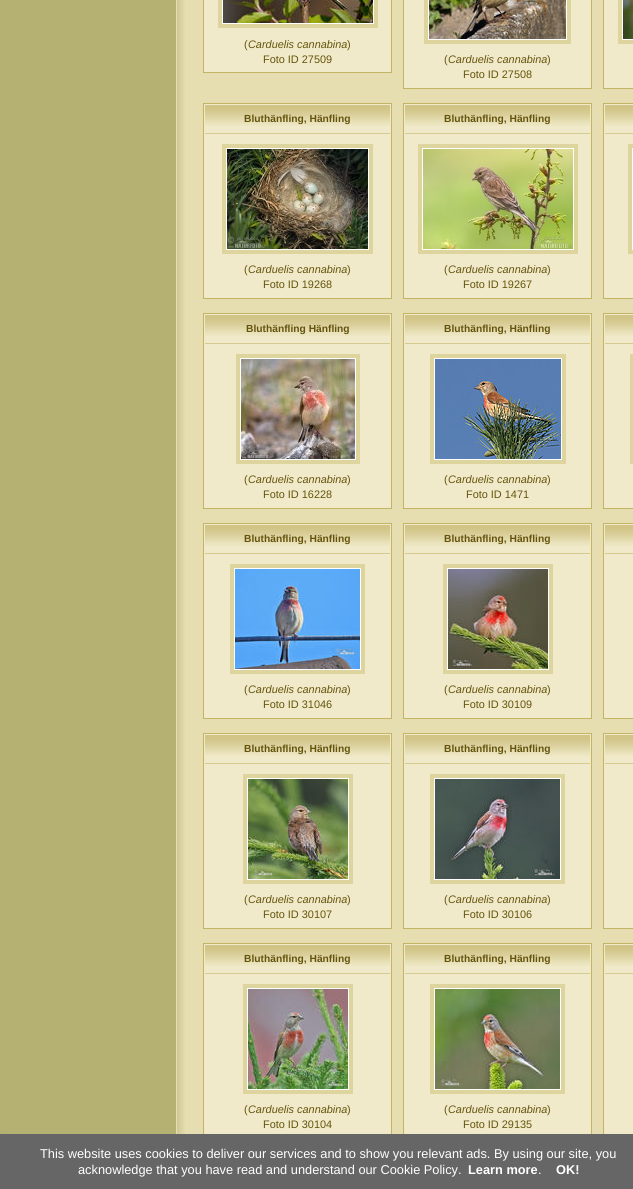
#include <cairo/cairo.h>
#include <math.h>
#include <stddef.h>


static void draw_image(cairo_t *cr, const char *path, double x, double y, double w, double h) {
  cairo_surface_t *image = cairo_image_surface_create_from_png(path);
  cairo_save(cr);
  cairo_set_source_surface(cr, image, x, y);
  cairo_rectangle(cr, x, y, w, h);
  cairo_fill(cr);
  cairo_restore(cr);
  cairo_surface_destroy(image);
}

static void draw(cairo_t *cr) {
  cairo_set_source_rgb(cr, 1, 1, 1);
  cairo_paint(cr);
  draw_image(cr, "images/1.png", 1, 0, 175, 1134);
  cairo_set_source_rgb(cr, 181 / 255.0, 176 / 255.0, 108 / 255.0);
  cairo_rectangle(cr, 0, 0, 1, 1134);
  cairo_fill(cr);
  cairo_set_source_rgb(cr, 230 / 255.0, 222 / 255.0, 176 / 255.0);
  cairo_rectangle(cr, 176, 0, 457, 1134);
  cairo_fill(cr);
  draw_image(cr, "images/2.png", 177, 0, 8, 1134);
  cairo_set_source_rgb(cr, 240 / 255.0, 234 / 255.0, 202 / 255.0);
  cairo_rectangle(cr, 203.5, -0.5, 188, 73);
  cairo_fill_preserve(cr);
  cairo_set_source_rgb(cr, 194 / 255.0, 180 / 255.0, 99 / 255.0);
  cairo_set_line_width(cr, 1);
  cairo_stroke(cr);
  cairo_set_source_rgb(cr, 1, 1, 1);
  cairo_rectangle(cr, 220, -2, 156, 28);
  cairo_fill_preserve(cr);
  cairo_set_source_rgb(cr, 222 / 255.0, 212 / 255.0, 158 / 255.0);
  cairo_set_line_width(cr, 4);
  cairo_stroke(cr);
  draw_image(cr, "images/3.png", 223, 0, 150, 23);
  cairo_set_source_rgb(cr, 240 / 255.0, 234 / 255.0, 202 / 255.0);
  cairo_rectangle(cr, 603.5, -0.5, 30, 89);
  cairo_fill_preserve(cr);
  cairo_set_source_rgb(cr, 194 / 255.0, 180 / 255.0, 99 / 255.0);
  cairo_set_line_width(cr, 1);
  cairo_stroke(cr);
  cairo_set_source_rgb(cr, 1, 1, 1);
  cairo_rectangle(cr, 620, -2, 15, 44);
  cairo_fill_preserve(cr);
  cairo_set_source_rgb(cr, 222 / 255.0, 212 / 255.0, 158 / 255.0);
  cairo_set_line_width(cr, 4);
  cairo_stroke(cr);
  draw_image(cr, "images/4.png", 623, 0, 10, 39);
  cairo_set_source_rgb(cr, 240 / 255.0, 234 / 255.0, 202 / 255.0);
  cairo_rectangle(cr, 403.5, -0.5, 188, 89);
  cairo_fill_preserve(cr);
  cairo_set_source_rgb(cr, 194 / 255.0, 180 / 255.0, 99 / 255.0);
  cairo_set_line_width(cr, 1);
  cairo_stroke(cr);
  cairo_set_source_rgb(cr, 1, 1, 1);
  cairo_rectangle(cr, 426, -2, 143, 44);
  cairo_fill_preserve(cr);
  cairo_set_source_rgb(cr, 222 / 255.0, 212 / 255.0, 158 / 255.0);
  cairo_set_line_width(cr, 4);
  cairo_stroke(cr);
  draw_image(cr, "images/5.png", 429, 0, 137, 39);
  cairo_set_source_rgb(cr, 240 / 255.0, 234 / 255.0, 202 / 255.0);
  cairo_rectangle(cr, 203.5, 103.5, 188, 195);
  cairo_fill_preserve(cr);
  cairo_set_source_rgb(cr, 194 / 255.0, 180 / 255.0, 99 / 255.0);
  cairo_set_line_width(cr, 1);
  cairo_stroke(cr);
  draw_image(cr, "images/6.png", 205, 105, 185, 21);
  cairo_set_source_rgb(cr, 214 / 255.0, 203 / 255.0, 143 / 255.0);
  cairo_rectangle(cr, 205, 133, 185, 1);
  cairo_fill(cr);
  cairo_set_source_rgb(cr, 1, 1, 1);
  cairo_rectangle(cr, 224, 146, 147, 106);
  cairo_fill_preserve(cr);
  cairo_set_source_rgb(cr, 222 / 255.0, 212 / 255.0, 158 / 255.0);
  cairo_set_line_width(cr, 4);
  cairo_stroke(cr);
  draw_image(cr, "images/7.png", 227, 149, 141, 100);
  cairo_set_source_rgb(cr, 240 / 255.0, 234 / 255.0, 202 / 255.0);
  cairo_rectangle(cr, 403.5, 103.5, 188, 195);
  cairo_fill_preserve(cr);
  cairo_set_source_rgb(cr, 194 / 255.0, 180 / 255.0, 99 / 255.0);
  cairo_set_line_width(cr, 1);
  cairo_stroke(cr);
  draw_image(cr, "images/6.png", 405, 105, 185, 21);
  cairo_set_source_rgb(cr, 214 / 255.0, 203 / 255.0, 143 / 255.0);
  cairo_rectangle(cr, 405, 133, 185, 1);
  cairo_fill(cr);
  cairo_set_source_rgb(cr, 1, 1, 1);
  cairo_rectangle(cr, 420, 146, 156, 106);
  cairo_fill_preserve(cr);
  cairo_set_source_rgb(cr, 222 / 255.0, 212 / 255.0, 158 / 255.0);
  cairo_set_line_width(cr, 4);
  cairo_stroke(cr);
  draw_image(cr, "images/8.png", 423, 149, 150, 100);
  cairo_set_source_rgb(cr, 240 / 255.0, 234 / 255.0, 202 / 255.0);
  cairo_rectangle(cr, 603.5, 103.5, 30, 195);
  cairo_fill_preserve(cr);
  cairo_set_source_rgb(cr, 194 / 255.0, 180 / 255.0, 99 / 255.0);
  cairo_set_line_width(cr, 1);
  cairo_stroke(cr);
  draw_image(cr, "images/9.png", 605, 105, 28, 21);
  cairo_set_source_rgb(cr, 214 / 255.0, 203 / 255.0, 143 / 255.0);
  cairo_rectangle(cr, 605, 133, 28, 1);
  cairo_fill(cr);
  cairo_set_source_rgb(cr, 1, 1, 1);
  cairo_rectangle(cr, 630, 146, 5, 106);
  cairo_fill_preserve(cr);
  cairo_set_source_rgb(cr, 222 / 255.0, 212 / 255.0, 158 / 255.0);
  cairo_set_line_width(cr, 4);
  cairo_stroke(cr);
  cairo_set_source_rgb(cr, 240 / 255.0, 234 / 255.0, 202 / 255.0);
  cairo_rectangle(cr, 203.5, 313.5, 188, 195);
  cairo_fill_preserve(cr);
  cairo_set_source_rgb(cr, 194 / 255.0, 180 / 255.0, 99 / 255.0);
  cairo_set_line_width(cr, 1);
  cairo_stroke(cr);
  draw_image(cr, "images/6.png", 205, 315, 185, 21);
  cairo_set_source_rgb(cr, 214 / 255.0, 203 / 255.0, 143 / 255.0);
  cairo_rectangle(cr, 205, 343, 185, 1);
  cairo_fill(cr);
  cairo_set_source_rgb(cr, 1, 1, 1);
  cairo_rectangle(cr, 238, 356, 120, 106);
  cairo_fill_preserve(cr);
  cairo_set_source_rgb(cr, 222 / 255.0, 212 / 255.0, 158 / 255.0);
  cairo_set_line_width(cr, 4);
  cairo_stroke(cr);
  draw_image(cr, "images/10.png", 241, 359, 114, 100);
  cairo_set_source_rgb(cr, 240 / 255.0, 234 / 255.0, 202 / 255.0);
  cairo_rectangle(cr, 403.5, 313.5, 188, 195);
  cairo_fill_preserve(cr);
  cairo_set_source_rgb(cr, 194 / 255.0, 180 / 255.0, 99 / 255.0);
  cairo_set_line_width(cr, 1);
  cairo_stroke(cr);
  draw_image(cr, "images/6.png", 405, 315, 185, 21);
  cairo_set_source_rgb(cr, 214 / 255.0, 203 / 255.0, 143 / 255.0);
  cairo_rectangle(cr, 405, 343, 185, 1);
  cairo_fill(cr);
  cairo_set_source_rgb(cr, 1, 1, 1);
  cairo_rectangle(cr, 432, 356, 132, 106);
  cairo_fill_preserve(cr);
  cairo_set_source_rgb(cr, 222 / 255.0, 212 / 255.0, 158 / 255.0);
  cairo_set_line_width(cr, 4);
  cairo_stroke(cr);
  draw_image(cr, "images/11.png", 435, 359, 126, 100);
  cairo_set_source_rgb(cr, 240 / 255.0, 234 / 255.0, 202 / 255.0);
  cairo_rectangle(cr, 603.5, 313.5, 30, 195);
  cairo_fill_preserve(cr);
  cairo_set_source_rgb(cr, 194 / 255.0, 180 / 255.0, 99 / 255.0);
  cairo_set_line_width(cr, 1);
  cairo_stroke(cr);
  draw_image(cr, "images/9.png", 605, 315, 28, 21);
  cairo_set_source_rgb(cr, 214 / 255.0, 203 / 255.0, 143 / 255.0);
  cairo_rectangle(cr, 605, 343, 28, 1);
  cairo_fill(cr);
  cairo_rectangle(cr, 632, 356, 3, 106);
  cairo_set_source_rgb(cr, 222 / 255.0, 212 / 255.0, 158 / 255.0);
  cairo_set_line_width(cr, 4);
  cairo_stroke(cr);
  cairo_set_source_rgb(cr, 240 / 255.0, 234 / 255.0, 202 / 255.0);
  cairo_rectangle(cr, 203.5, 523.5, 188, 195);
  cairo_fill_preserve(cr);
  cairo_set_source_rgb(cr, 194 / 255.0, 180 / 255.0, 99 / 255.0);
  cairo_set_line_width(cr, 1);
  cairo_stroke(cr);
  draw_image(cr, "images/6.png", 205, 525, 185, 21);
  cairo_set_source_rgb(cr, 214 / 255.0, 203 / 255.0, 143 / 255.0);
  cairo_rectangle(cr, 205, 553, 185, 1);
  cairo_fill(cr);
  cairo_set_source_rgb(cr, 1, 1, 1);
  cairo_rectangle(cr, 232, 566, 131, 106);
  cairo_fill_preserve(cr);
  cairo_set_source_rgb(cr, 222 / 255.0, 212 / 255.0, 158 / 255.0);
  cairo_set_line_width(cr, 4);
  cairo_stroke(cr);
  draw_image(cr, "images/12.png", 235, 569, 125, 100);
  cairo_set_source_rgb(cr, 240 / 255.0, 234 / 255.0, 202 / 255.0);
  cairo_rectangle(cr, 403.5, 523.5, 188, 195);
  cairo_fill_preserve(cr);
  cairo_set_source_rgb(cr, 194 / 255.0, 180 / 255.0, 99 / 255.0);
  cairo_set_line_width(cr, 1);
  cairo_stroke(cr);
  draw_image(cr, "images/6.png", 405, 525, 185, 21);
  cairo_set_source_rgb(cr, 214 / 255.0, 203 / 255.0, 143 / 255.0);
  cairo_rectangle(cr, 405, 553, 185, 1);
  cairo_fill(cr);
  cairo_set_source_rgb(cr, 1, 1, 1);
  cairo_rectangle(cr, 445, 566, 106, 106);
  cairo_fill_preserve(cr);
  cairo_set_source_rgb(cr, 222 / 255.0, 212 / 255.0, 158 / 255.0);
  cairo_set_line_width(cr, 4);
  cairo_stroke(cr);
  draw_image(cr, "images/13.png", 448, 569, 100, 100);
  cairo_set_source_rgb(cr, 240 / 255.0, 234 / 255.0, 202 / 255.0);
  cairo_rectangle(cr, 603.5, 523.5, 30, 195);
  cairo_fill_preserve(cr);
  cairo_set_source_rgb(cr, 194 / 255.0, 180 / 255.0, 99 / 255.0);
  cairo_set_line_width(cr, 1);
  cairo_stroke(cr);
  draw_image(cr, "images/9.png", 605, 525, 28, 21);
  cairo_set_source_rgb(cr, 214 / 255.0, 203 / 255.0, 143 / 255.0);
  cairo_rectangle(cr, 605, 553, 28, 1);
  cairo_fill(cr);
  cairo_set_source_rgb(cr, 240 / 255.0, 234 / 255.0, 202 / 255.0);
  cairo_rectangle(cr, 203.5, 733.5, 188, 195);
  cairo_fill_preserve(cr);
  cairo_set_source_rgb(cr, 194 / 255.0, 180 / 255.0, 99 / 255.0);
  cairo_stroke(cr);
  draw_image(cr, "images/6.png", 205, 735, 185, 21);
  cairo_set_source_rgb(cr, 214 / 255.0, 203 / 255.0, 143 / 255.0);
  cairo_rectangle(cr, 205, 763, 185, 1);
  cairo_fill(cr);
  cairo_set_source_rgb(cr, 1, 1, 1);
  cairo_rectangle(cr, 245, 776, 106, 106);
  cairo_fill_preserve(cr);
  cairo_set_source_rgb(cr, 222 / 255.0, 212 / 255.0, 158 / 255.0);
  cairo_set_line_width(cr, 4);
  cairo_stroke(cr);
  draw_image(cr, "images/14.png", 248, 779, 100, 100);
  cairo_set_source_rgb(cr, 240 / 255.0, 234 / 255.0, 202 / 255.0);
  cairo_rectangle(cr, 403.5, 733.5, 188, 195);
  cairo_fill_preserve(cr);
  cairo_set_source_rgb(cr, 194 / 255.0, 180 / 255.0, 99 / 255.0);
  cairo_set_line_width(cr, 1);
  cairo_stroke(cr);
  draw_image(cr, "images/6.png", 405, 735, 185, 21);
  cairo_set_source_rgb(cr, 214 / 255.0, 203 / 255.0, 143 / 255.0);
  cairo_rectangle(cr, 405, 763, 185, 1);
  cairo_fill(cr);
  cairo_set_source_rgb(cr, 1, 1, 1);
  cairo_rectangle(cr, 432, 776, 131, 106);
  cairo_fill_preserve(cr);
  cairo_set_source_rgb(cr, 222 / 255.0, 212 / 255.0, 158 / 255.0);
  cairo_set_line_width(cr, 4);
  cairo_stroke(cr);
  draw_image(cr, "images/15.png", 435, 779, 125, 100);
  cairo_set_source_rgb(cr, 240 / 255.0, 234 / 255.0, 202 / 255.0);
  cairo_rectangle(cr, 603.5, 733.5, 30, 195);
  cairo_fill_preserve(cr);
  cairo_set_source_rgb(cr, 194 / 255.0, 180 / 255.0, 99 / 255.0);
  cairo_set_line_width(cr, 1);
  cairo_stroke(cr);
  draw_image(cr, "images/9.png", 605, 735, 28, 21);
  cairo_set_source_rgb(cr, 214 / 255.0, 203 / 255.0, 143 / 255.0);
  cairo_rectangle(cr, 605, 763, 28, 1);
  cairo_fill(cr);
  cairo_set_source_rgb(cr, 240 / 255.0, 234 / 255.0, 202 / 255.0);
  cairo_rectangle(cr, 204, 944, 187, 190);
  cairo_fill(cr);
  cairo_rectangle(cr, 203.5, 943.5, 188, 195);
  cairo_set_source_rgb(cr, 194 / 255.0, 180 / 255.0, 99 / 255.0);
  cairo_stroke(cr);
  draw_image(cr, "images/6.png", 205, 945, 185, 21);
  cairo_set_source_rgb(cr, 214 / 255.0, 203 / 255.0, 143 / 255.0);
  cairo_rectangle(cr, 205, 973, 185, 1);
  cairo_fill(cr);
  cairo_set_source_rgb(cr, 1, 1, 1);
  cairo_rectangle(cr, 245, 986, 106, 106);
  cairo_fill_preserve(cr);
  cairo_set_source_rgb(cr, 222 / 255.0, 212 / 255.0, 158 / 255.0);
  cairo_set_line_width(cr, 4);
  cairo_stroke(cr);
  draw_image(cr, "images/16.png", 248, 989, 100, 100);
  cairo_set_source_rgb(cr, 240 / 255.0, 234 / 255.0, 202 / 255.0);
  cairo_rectangle(cr, 404, 944, 187, 190);
  cairo_fill(cr);
  cairo_rectangle(cr, 403.5, 943.5, 188, 195);
  cairo_set_source_rgb(cr, 194 / 255.0, 180 / 255.0, 99 / 255.0);
  cairo_set_line_width(cr, 1);
  cairo_stroke(cr);
  draw_image(cr, "images/6.png", 405, 945, 185, 21);
  cairo_set_source_rgb(cr, 214 / 255.0, 203 / 255.0, 143 / 255.0);
  cairo_rectangle(cr, 405, 973, 185, 1);
  cairo_fill(cr);
  cairo_set_source_rgb(cr, 1, 1, 1);
  cairo_rectangle(cr, 432, 986, 131, 106);
  cairo_fill_preserve(cr);
  cairo_set_source_rgb(cr, 222 / 255.0, 212 / 255.0, 158 / 255.0);
  cairo_set_line_width(cr, 4);
  cairo_stroke(cr);
  draw_image(cr, "images/17.png", 435, 989, 125, 100);
  cairo_set_source_rgb(cr, 240 / 255.0, 234 / 255.0, 202 / 255.0);
  cairo_rectangle(cr, 604, 944, 29, 190);
  cairo_fill(cr);
  cairo_rectangle(cr, 603.5, 943.5, 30, 195);
  cairo_set_source_rgb(cr, 194 / 255.0, 180 / 255.0, 99 / 255.0);
  cairo_set_line_width(cr, 1);
  cairo_stroke(cr);
  draw_image(cr, "images/9.png", 605, 945, 28, 21);
  cairo_set_source_rgb(cr, 214 / 255.0, 203 / 255.0, 143 / 255.0);
  cairo_rectangle(cr, 605, 973, 28, 1);
  cairo_fill(cr);
  cairo_set_source_rgb(cr, 102 / 255.0, 102 / 255.0, 102 / 255.0);
  cairo_rectangle(cr, 0, 1134, 633, 55);
  cairo_fill(cr);
  cairo_select_font_face(cr, "Liberation Sans", CAIRO_FONT_SLANT_NORMAL, CAIRO_FONT_WEIGHT_NORMAL);
  cairo_set_font_size(cr, 10.9);
  cairo_set_source_rgb(cr, 101 / 255.0, 83 / 255.0, 11 / 255.0);
  cairo_move_to(cr, 244, 48);
  cairo_show_text(cr, "(");
  cairo_select_font_face(cr, "Liberation Sans", CAIRO_FONT_SLANT_ITALIC, CAIRO_FONT_WEIGHT_NORMAL);
  cairo_move_to(cr, 248, 48);
  cairo_show_text(cr, "Carduelis cannabina");
  cairo_select_font_face(cr, "Liberation Sans", CAIRO_FONT_SLANT_NORMAL, CAIRO_FONT_WEIGHT_NORMAL);
  cairo_move_to(cr, 347, 48);
  cairo_show_text(cr, ")");
  cairo_move_to(cr, 263, 63);
  cairo_show_text(cr, "Foto ID 27509");
  cairo_move_to(cr, 444, 63);
  cairo_show_text(cr, "(");
  cairo_select_font_face(cr, "Liberation Sans", CAIRO_FONT_SLANT_ITALIC, CAIRO_FONT_WEIGHT_NORMAL);
  cairo_move_to(cr, 448, 63);
  cairo_show_text(cr, "Carduelis cannabina");
  cairo_select_font_face(cr, "Liberation Sans", CAIRO_FONT_SLANT_NORMAL, CAIRO_FONT_WEIGHT_NORMAL);
  cairo_move_to(cr, 547, 63);
  cairo_show_text(cr, ")");
  cairo_move_to(cr, 463, 78);
  cairo_show_text(cr, "Foto ID 27508");
  cairo_select_font_face(cr, "Liberation Sans", CAIRO_FONT_SLANT_NORMAL, CAIRO_FONT_WEIGHT_BOLD);
  cairo_set_font_size(cr, 10.25);
  cairo_move_to(cr, 244, 122);
  cairo_show_text(cr, "Bluthänfling, Hänfling");
  cairo_select_font_face(cr, "Liberation Sans", CAIRO_FONT_SLANT_NORMAL, CAIRO_FONT_WEIGHT_NORMAL);
  cairo_set_font_size(cr, 10.9);
  cairo_move_to(cr, 244, 273);
  cairo_show_text(cr, "(");
  cairo_select_font_face(cr, "Liberation Sans", CAIRO_FONT_SLANT_ITALIC, CAIRO_FONT_WEIGHT_NORMAL);
  cairo_move_to(cr, 248, 273);
  cairo_show_text(cr, "Carduelis cannabina");
  cairo_select_font_face(cr, "Liberation Sans", CAIRO_FONT_SLANT_NORMAL, CAIRO_FONT_WEIGHT_NORMAL);
  cairo_move_to(cr, 347, 273);
  cairo_show_text(cr, ")");
  cairo_move_to(cr, 263, 288);
  cairo_show_text(cr, "Foto ID 19268");
  cairo_select_font_face(cr, "Liberation Sans", CAIRO_FONT_SLANT_NORMAL, CAIRO_FONT_WEIGHT_BOLD);
  cairo_set_font_size(cr, 10.25);
  cairo_move_to(cr, 444, 122);
  cairo_show_text(cr, "Bluthänfling, Hänfling");
  cairo_select_font_face(cr, "Liberation Sans", CAIRO_FONT_SLANT_NORMAL, CAIRO_FONT_WEIGHT_NORMAL);
  cairo_set_font_size(cr, 10.9);
  cairo_move_to(cr, 444, 273);
  cairo_show_text(cr, "(");
  cairo_select_font_face(cr, "Liberation Sans", CAIRO_FONT_SLANT_ITALIC, CAIRO_FONT_WEIGHT_NORMAL);
  cairo_move_to(cr, 448, 273);
  cairo_show_text(cr, "Carduelis cannabina");
  cairo_select_font_face(cr, "Liberation Sans", CAIRO_FONT_SLANT_NORMAL, CAIRO_FONT_WEIGHT_NORMAL);
  cairo_move_to(cr, 547, 273);
  cairo_show_text(cr, ")");
  cairo_move_to(cr, 463, 288);
  cairo_show_text(cr, "Foto ID 19267");
  cairo_select_font_face(cr, "Liberation Sans", CAIRO_FONT_SLANT_NORMAL, CAIRO_FONT_WEIGHT_BOLD);
  cairo_set_font_size(cr, 10.25);
  cairo_move_to(cr, 246, 332);
  cairo_show_text(cr, "Bluthänfling Hänfling");
  cairo_select_font_face(cr, "Liberation Sans", CAIRO_FONT_SLANT_NORMAL, CAIRO_FONT_WEIGHT_NORMAL);
  cairo_set_font_size(cr, 10.9);
  cairo_move_to(cr, 244, 483);
  cairo_show_text(cr, "(");
  cairo_select_font_face(cr, "Liberation Sans", CAIRO_FONT_SLANT_ITALIC, CAIRO_FONT_WEIGHT_NORMAL);
  cairo_move_to(cr, 248, 483);
  cairo_show_text(cr, "Carduelis cannabina");
  cairo_select_font_face(cr, "Liberation Sans", CAIRO_FONT_SLANT_NORMAL, CAIRO_FONT_WEIGHT_NORMAL);
  cairo_move_to(cr, 347, 483);
  cairo_show_text(cr, ")");
  cairo_move_to(cr, 263, 498);
  cairo_show_text(cr, "Foto ID 16228");
  cairo_select_font_face(cr, "Liberation Sans", CAIRO_FONT_SLANT_NORMAL, CAIRO_FONT_WEIGHT_BOLD);
  cairo_set_font_size(cr, 10.25);
  cairo_move_to(cr, 444, 332);
  cairo_show_text(cr, "Bluthänfling, Hänfling");
  cairo_select_font_face(cr, "Liberation Sans", CAIRO_FONT_SLANT_NORMAL, CAIRO_FONT_WEIGHT_NORMAL);
  cairo_set_font_size(cr, 10.9);
  cairo_move_to(cr, 444, 483);
  cairo_show_text(cr, "(");
  cairo_select_font_face(cr, "Liberation Sans", CAIRO_FONT_SLANT_ITALIC, CAIRO_FONT_WEIGHT_NORMAL);
  cairo_move_to(cr, 448, 483);
  cairo_show_text(cr, "Carduelis cannabina");
  cairo_select_font_face(cr, "Liberation Sans", CAIRO_FONT_SLANT_NORMAL, CAIRO_FONT_WEIGHT_NORMAL);
  cairo_move_to(cr, 547, 483);
  cairo_show_text(cr, ")");
  cairo_move_to(cr, 466, 498);
  cairo_show_text(cr, "Foto ID 1471");
  cairo_select_font_face(cr, "Liberation Sans", CAIRO_FONT_SLANT_NORMAL, CAIRO_FONT_WEIGHT_BOLD);
  cairo_set_font_size(cr, 10.25);
  cairo_move_to(cr, 244, 542);
  cairo_show_text(cr, "Bluthänfling, Hänfling");
  cairo_select_font_face(cr, "Liberation Sans", CAIRO_FONT_SLANT_NORMAL, CAIRO_FONT_WEIGHT_NORMAL);
  cairo_set_font_size(cr, 10.9);
  cairo_move_to(cr, 244, 693);
  cairo_show_text(cr, "(");
  cairo_select_font_face(cr, "Liberation Sans", CAIRO_FONT_SLANT_ITALIC, CAIRO_FONT_WEIGHT_NORMAL);
  cairo_move_to(cr, 248, 693);
  cairo_show_text(cr, "Carduelis cannabina");
  cairo_select_font_face(cr, "Liberation Sans", CAIRO_FONT_SLANT_NORMAL, CAIRO_FONT_WEIGHT_NORMAL);
  cairo_move_to(cr, 347, 693);
  cairo_show_text(cr, ")");
  cairo_move_to(cr, 263, 708);
  cairo_show_text(cr, "Foto ID 31046");
  cairo_select_font_face(cr, "Liberation Sans", CAIRO_FONT_SLANT_NORMAL, CAIRO_FONT_WEIGHT_BOLD);
  cairo_set_font_size(cr, 10.25);
  cairo_move_to(cr, 444, 542);
  cairo_show_text(cr, "Bluthänfling, Hänfling");
  cairo_select_font_face(cr, "Liberation Sans", CAIRO_FONT_SLANT_NORMAL, CAIRO_FONT_WEIGHT_NORMAL);
  cairo_set_font_size(cr, 10.9);
  cairo_move_to(cr, 444, 693);
  cairo_show_text(cr, "(");
  cairo_select_font_face(cr, "Liberation Sans", CAIRO_FONT_SLANT_ITALIC, CAIRO_FONT_WEIGHT_NORMAL);
  cairo_move_to(cr, 448, 693);
  cairo_show_text(cr, "Carduelis cannabina");
  cairo_select_font_face(cr, "Liberation Sans", CAIRO_FONT_SLANT_NORMAL, CAIRO_FONT_WEIGHT_NORMAL);
  cairo_move_to(cr, 547, 693);
  cairo_show_text(cr, ")");
  cairo_move_to(cr, 463, 708);
  cairo_show_text(cr, "Foto ID 30109");
  cairo_select_font_face(cr, "Liberation Sans", CAIRO_FONT_SLANT_NORMAL, CAIRO_FONT_WEIGHT_BOLD);
  cairo_set_font_size(cr, 10.25);
  cairo_move_to(cr, 244, 752);
  cairo_show_text(cr, "Bluthänfling, Hänfling");
  cairo_select_font_face(cr, "Liberation Sans", CAIRO_FONT_SLANT_NORMAL, CAIRO_FONT_WEIGHT_NORMAL);
  cairo_set_font_size(cr, 10.9);
  cairo_move_to(cr, 244, 903);
  cairo_show_text(cr, "(");
  cairo_select_font_face(cr, "Liberation Sans", CAIRO_FONT_SLANT_ITALIC, CAIRO_FONT_WEIGHT_NORMAL);
  cairo_move_to(cr, 248, 903);
  cairo_show_text(cr, "Carduelis cannabina");
  cairo_select_font_face(cr, "Liberation Sans", CAIRO_FONT_SLANT_NORMAL, CAIRO_FONT_WEIGHT_NORMAL);
  cairo_move_to(cr, 347, 903);
  cairo_show_text(cr, ")");
  cairo_move_to(cr, 263, 918);
  cairo_show_text(cr, "Foto ID 30107");
  cairo_select_font_face(cr, "Liberation Sans", CAIRO_FONT_SLANT_NORMAL, CAIRO_FONT_WEIGHT_BOLD);
  cairo_set_font_size(cr, 10.25);
  cairo_move_to(cr, 444, 752);
  cairo_show_text(cr, "Bluthänfling, Hänfling");
  cairo_select_font_face(cr, "Liberation Sans", CAIRO_FONT_SLANT_NORMAL, CAIRO_FONT_WEIGHT_NORMAL);
  cairo_set_font_size(cr, 10.9);
  cairo_move_to(cr, 444, 903);
  cairo_show_text(cr, "(");
  cairo_select_font_face(cr, "Liberation Sans", CAIRO_FONT_SLANT_ITALIC, CAIRO_FONT_WEIGHT_NORMAL);
  cairo_move_to(cr, 448, 903);
  cairo_show_text(cr, "Carduelis cannabina");
  cairo_select_font_face(cr, "Liberation Sans", CAIRO_FONT_SLANT_NORMAL, CAIRO_FONT_WEIGHT_NORMAL);
  cairo_move_to(cr, 547, 903);
  cairo_show_text(cr, ")");
  cairo_move_to(cr, 463, 918);
  cairo_show_text(cr, "Foto ID 30106");
  cairo_select_font_face(cr, "Liberation Sans", CAIRO_FONT_SLANT_NORMAL, CAIRO_FONT_WEIGHT_BOLD);
  cairo_set_font_size(cr, 10.25);
  cairo_move_to(cr, 244, 962);
  cairo_show_text(cr, "Bluthänfling, Hänfling");
  cairo_select_font_face(cr, "Liberation Sans", CAIRO_FONT_SLANT_NORMAL, CAIRO_FONT_WEIGHT_NORMAL);
  cairo_set_font_size(cr, 10.9);
  cairo_move_to(cr, 244, 1113);
  cairo_show_text(cr, "(");
  cairo_select_font_face(cr, "Liberation Sans", CAIRO_FONT_SLANT_ITALIC, CAIRO_FONT_WEIGHT_NORMAL);
  cairo_move_to(cr, 248, 1113);
  cairo_show_text(cr, "Carduelis cannabina");
  cairo_select_font_face(cr, "Liberation Sans", CAIRO_FONT_SLANT_NORMAL, CAIRO_FONT_WEIGHT_NORMAL);
  cairo_move_to(cr, 347, 1113);
  cairo_show_text(cr, ")");
  cairo_move_to(cr, 263, 1128);
  cairo_show_text(cr, "Foto ID 30104");
  cairo_select_font_face(cr, "Liberation Sans", CAIRO_FONT_SLANT_NORMAL, CAIRO_FONT_WEIGHT_BOLD);
  cairo_set_font_size(cr, 10.25);
  cairo_move_to(cr, 444, 962);
  cairo_show_text(cr, "Bluthänfling, Hänfling");
  cairo_select_font_face(cr, "Liberation Sans", CAIRO_FONT_SLANT_NORMAL, CAIRO_FONT_WEIGHT_NORMAL);
  cairo_set_font_size(cr, 10.9);
  cairo_move_to(cr, 444, 1113);
  cairo_show_text(cr, "(");
  cairo_select_font_face(cr, "Liberation Sans", CAIRO_FONT_SLANT_ITALIC, CAIRO_FONT_WEIGHT_NORMAL);
  cairo_move_to(cr, 448, 1113);
  cairo_show_text(cr, "Carduelis cannabina");
  cairo_select_font_face(cr, "Liberation Sans", CAIRO_FONT_SLANT_NORMAL, CAIRO_FONT_WEIGHT_NORMAL);
  cairo_move_to(cr, 547, 1113);
  cairo_show_text(cr, ")");
  cairo_move_to(cr, 463, 1128);
  cairo_show_text(cr, "Foto ID 29135");
  cairo_set_font_size(cr, 12.8);
  cairo_set_source_rgb(cr, 1, 1, 1);
  cairo_move_to(cr, 40, 1158);
  cairo_show_text(cr, "This website uses cookies to deliver our services and to show you relevant ads. By using our site, you");
  cairo_move_to(cr, 78, 1174);
  cairo_show_text(cr, "acknowledge that you have read and understand our Cookie Policy.");
  cairo_select_font_face(cr, "Liberation Sans", CAIRO_FONT_SLANT_NORMAL, CAIRO_FONT_WEIGHT_BOLD);
  cairo_move_to(cr, 468, 1174);
  cairo_show_text(cr, "Learn more");
  cairo_select_font_face(cr, "Liberation Sans", CAIRO_FONT_SLANT_NORMAL, CAIRO_FONT_WEIGHT_NORMAL);
  cairo_move_to(cr, 538, 1174);
  cairo_show_text(cr, ".");
  cairo_select_font_face(cr, "Liberation Sans", CAIRO_FONT_SLANT_NORMAL, CAIRO_FONT_WEIGHT_BOLD);
  cairo_move_to(cr, 556, 1174);
  cairo_show_text(cr, "OK!");
}

int main(void) {
  cairo_surface_t *surface = cairo_image_surface_create(CAIRO_FORMAT_RGB24, 633, 1189);
  cairo_t *cr = cairo_create(surface);
  cairo_font_options_t *options = cairo_font_options_create();
  cairo_font_options_set_hint_metrics(options, CAIRO_HINT_METRICS_OFF);
  cairo_font_options_set_hint_style(options, CAIRO_HINT_STYLE_NONE);
  cairo_set_font_options(cr, options);
  cairo_set_miter_limit(cr, 4);
  draw(cr);
  cairo_surface_write_to_png(surface, "out.png");
  cairo_font_options_destroy(options);
  cairo_destroy(cr);
  cairo_surface_destroy(surface);
  return 0;
}
